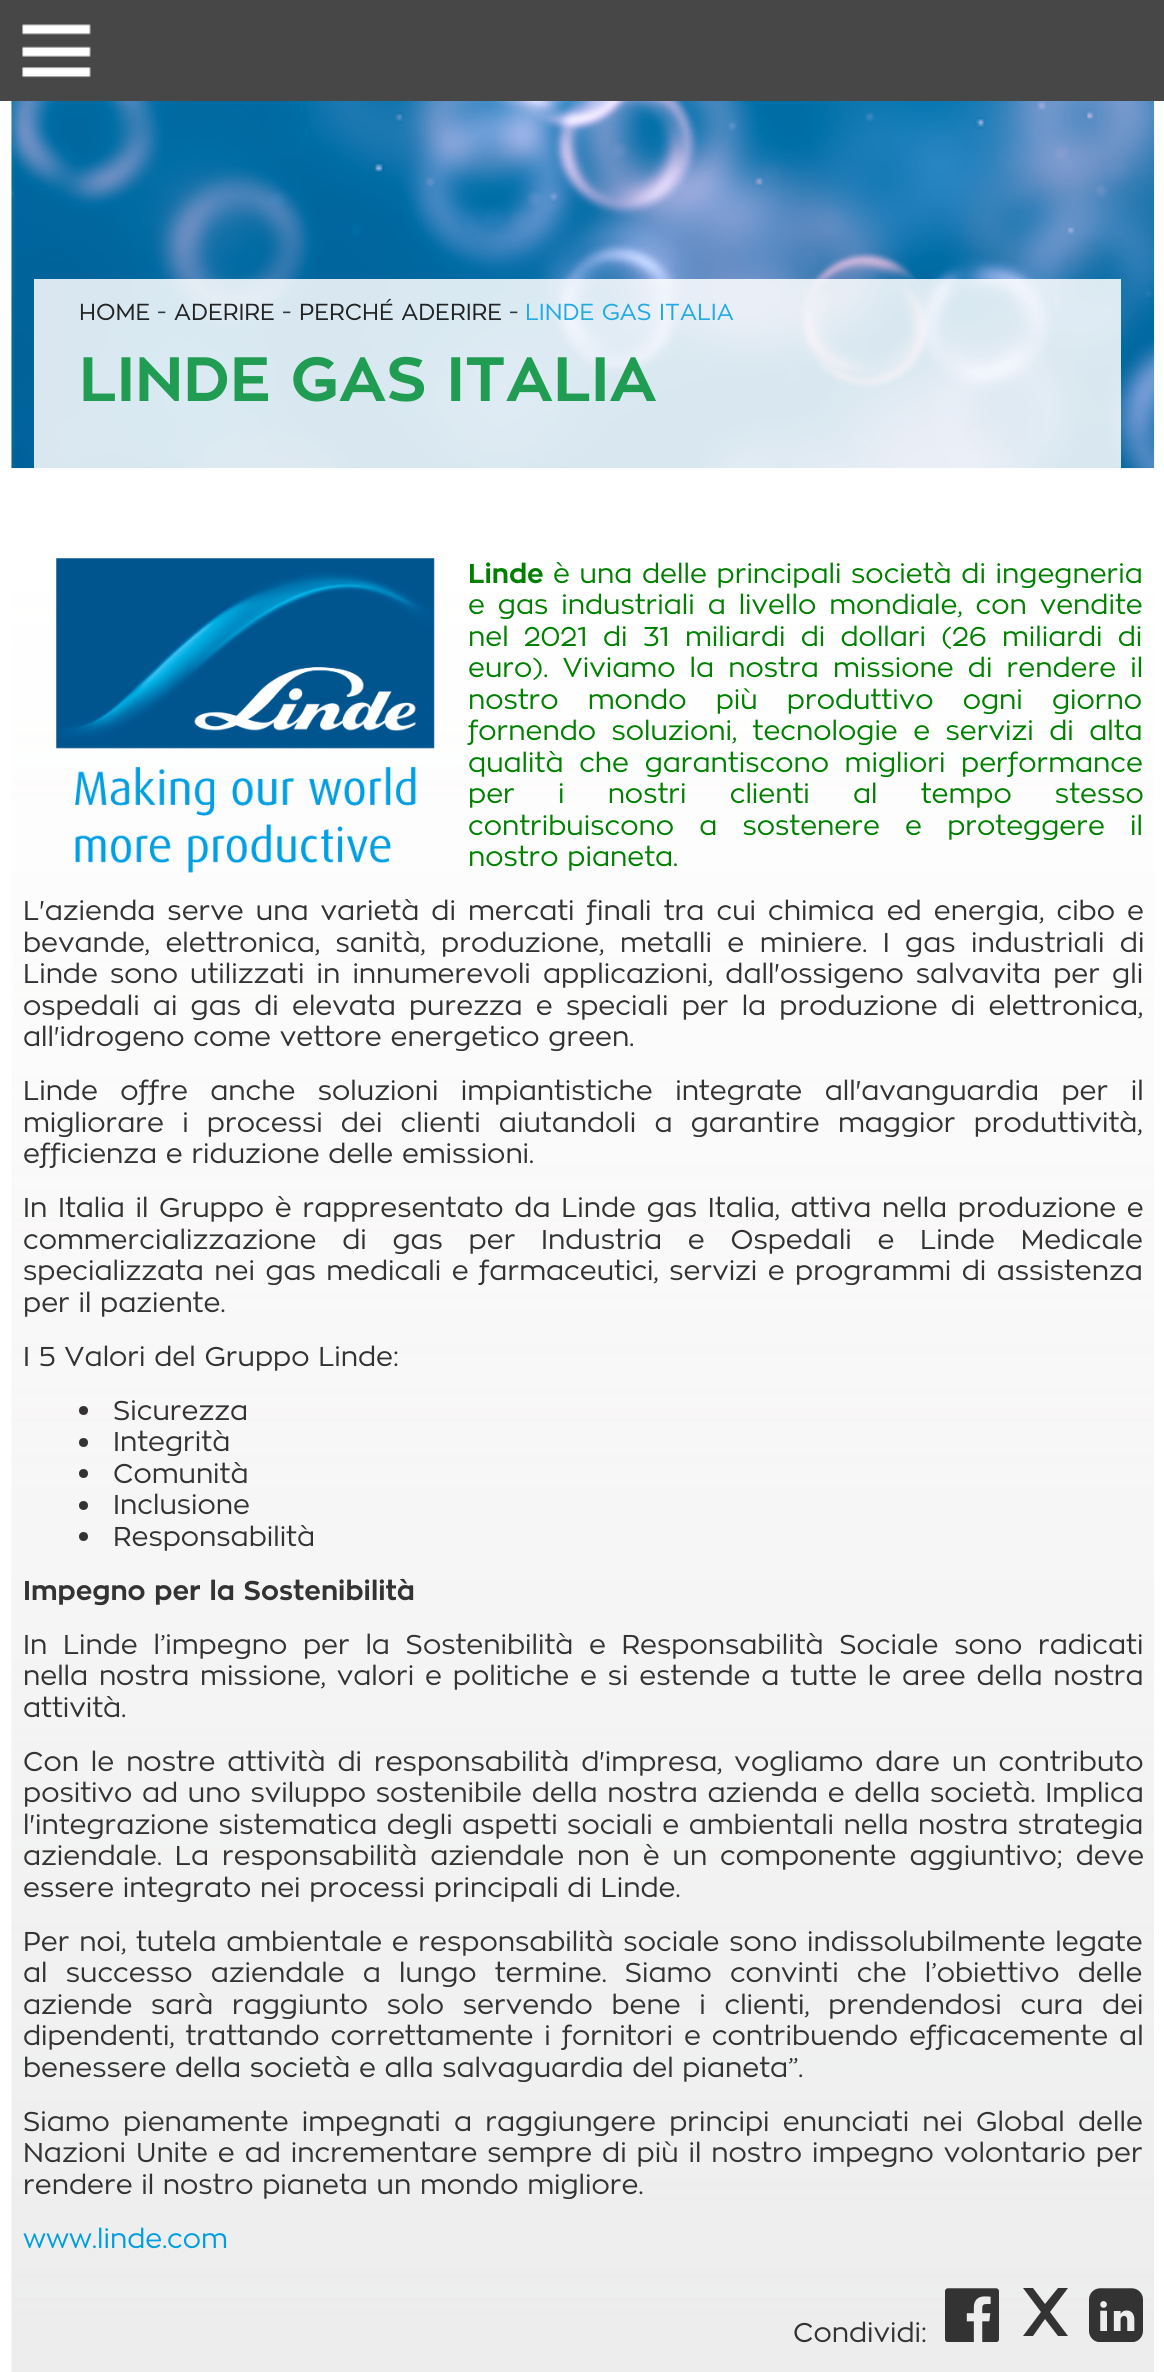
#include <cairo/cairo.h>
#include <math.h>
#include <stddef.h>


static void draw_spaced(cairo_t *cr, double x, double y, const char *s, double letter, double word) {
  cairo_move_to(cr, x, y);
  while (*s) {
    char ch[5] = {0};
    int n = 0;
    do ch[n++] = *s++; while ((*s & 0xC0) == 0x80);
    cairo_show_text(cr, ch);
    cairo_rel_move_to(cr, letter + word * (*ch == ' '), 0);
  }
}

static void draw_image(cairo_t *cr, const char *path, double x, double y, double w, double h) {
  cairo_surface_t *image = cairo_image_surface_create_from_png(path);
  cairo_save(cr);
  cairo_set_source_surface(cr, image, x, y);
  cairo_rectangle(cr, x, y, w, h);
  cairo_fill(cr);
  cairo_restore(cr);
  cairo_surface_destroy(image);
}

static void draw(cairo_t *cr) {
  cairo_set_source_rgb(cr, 1, 1, 1);
  cairo_paint(cr);
  cairo_set_source_rgb(cr, 71 / 255.0, 71 / 255.0, 71 / 255.0);
  cairo_rectangle(cr, 0, 0, 1164, 101);
  cairo_fill(cr);
  draw_image(cr, "images/1.png", 22, 24, 69, 54);
  draw_image(cr, "images/2.png", 11, 101, 1144, 368);
  draw_image(cr, "images/3.png", 11, 468, 1143, 1904);
  cairo_set_source_rgba(cr, 1, 1, 1, 0.85);
  cairo_rectangle(cr, 34, 279, 1087, 190);
  cairo_fill(cr);
  draw_image(cr, "images/4.png", 56, 558, 379, 315);
  cairo_set_source_rgb(cr, 51 / 255.0, 51 / 255.0, 51 / 255.0);
  cairo_arc(cr, 83.5, 1410.5, 4.5, 0, 2 * M_PI);
  cairo_fill(cr);
  cairo_arc(cr, 83.5, 1442.5, 4.5, 0, 2 * M_PI);
  cairo_fill(cr);
  cairo_arc(cr, 83.5, 1473.5, 4.5, 0, 2 * M_PI);
  cairo_fill(cr);
  cairo_arc(cr, 83.5, 1505.5, 4.5, 0, 2 * M_PI);
  cairo_fill(cr);
  cairo_arc(cr, 83.5, 1536.5, 4.5, 0, 2 * M_PI);
  cairo_fill(cr);
  draw_image(cr, "images/5.png", 945, 2288, 54, 54);
  cairo_new_path(cr);
  cairo_move_to(cr, 1068, 2288);
  cairo_line_to(cr, 1058, 2288);
  cairo_line_to(cr, 1045, 2304);
  cairo_line_to(cr, 1033, 2288);
  cairo_line_to(cr, 1023, 2288);
  cairo_line_to(cr, 1041, 2312);
  cairo_line_to(cr, 1023, 2336);
  cairo_line_to(cr, 1033, 2336);
  cairo_line_to(cr, 1045, 2319);
  cairo_line_to(cr, 1058, 2336);
  cairo_line_to(cr, 1068, 2336);
  cairo_line_to(cr, 1050, 2312);
  cairo_close_path(cr);
  cairo_fill(cr);
  draw_image(cr, "images/6.png", 1089, 2288, 54, 54);
  cairo_select_font_face(cr, "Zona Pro", CAIRO_FONT_SLANT_NORMAL, CAIRO_FONT_WEIGHT_NORMAL);
  cairo_set_font_size(cr, 23);
  cairo_set_source_rgb(cr, 33 / 255.0, 35 / 255.0, 36 / 255.0);
  cairo_move_to(cr, 79, 320);
  cairo_show_text(cr, "HOME");
  cairo_set_source_rgb(cr, 43 / 255.0, 59 / 255.0, 68 / 255.0);
  cairo_move_to(cr, 157, 320);
  cairo_show_text(cr, "-");
  cairo_set_source_rgb(cr, 33 / 255.0, 35 / 255.0, 36 / 255.0);
  cairo_move_to(cr, 174, 320);
  cairo_show_text(cr, "ADERIRE");
  cairo_set_source_rgb(cr, 43 / 255.0, 59 / 255.0, 68 / 255.0);
  cairo_move_to(cr, 282, 320);
  cairo_show_text(cr, "-");
  cairo_set_source_rgb(cr, 33 / 255.0, 35 / 255.0, 36 / 255.0);
  cairo_move_to(cr, 299, 320);
  cairo_show_text(cr, "PERCHÉ ADERIRE");
  cairo_set_source_rgb(cr, 43 / 255.0, 59 / 255.0, 68 / 255.0);
  cairo_move_to(cr, 509, 320);
  cairo_show_text(cr, "-");
  cairo_set_source_rgb(cr, 34 / 255.0, 170 / 255.0, 227 / 255.0);
  cairo_move_to(cr, 525, 320);
  cairo_show_text(cr, "LINDE GAS ITALIA");
  cairo_select_font_face(cr, "Zona Pro", CAIRO_FONT_SLANT_NORMAL, CAIRO_FONT_WEIGHT_BOLD);
  cairo_set_font_size(cr, 62);
  cairo_set_source_rgb(cr, 33 / 255.0, 157 / 255.0, 83 / 255.0);
  cairo_move_to(cr, 79, 401);
  cairo_show_text(cr, "LINDE GAS ITALIA");
  cairo_set_font_size(cr, 27);
  cairo_set_source_rgb(cr, 0, 128 / 255.0, 0);
  cairo_move_to(cr, 468, 583);
  cairo_show_text(cr, "Linde");
  cairo_select_font_face(cr, "Zona Pro", CAIRO_FONT_SLANT_NORMAL, CAIRO_FONT_WEIGHT_NORMAL);
  draw_spaced(cr, 553, 583, "è una delle principali società di ingegneria", 0, 1);
  draw_spaced(cr, 468, 614, "e gas industriali a livello mondiale, con vendite", 0, 4.25);
  draw_spaced(cr, 468, 646, "nel 2021 di 31 miliardi di dollari (26 miliardi di", 0, 6.5);
  draw_spaced(cr, 468, 677, "euro). Viviamo la nostra missione di rendere il", 0, 5.5);
  draw_spaced(cr, 468, 709, "nostro mondo più produttivo ogni giorno", 0, 20.5);
  draw_spaced(cr, 468, 740, "fornendo soluzioni, tecnologie e servizi di alta", 0, 6.75);
  draw_spaced(cr, 468, 772, "qualità che garantiscono migliori performance", 0, 7);
  draw_spaced(cr, 468, 803, "per i nostri clienti al tempo stesso", 0, 34.5);
  draw_spaced(cr, 468, 835, "contribuiscono a sostenere e proteggere il", 0, 16.5);
  cairo_move_to(cr, 468, 866);
  cairo_show_text(cr, "nostro pianeta.");
  cairo_set_source_rgb(cr, 51 / 255.0, 51 / 255.0, 51 / 255.0);
  draw_spaced(cr, 23, 920, "L'azienda serve una varietà di mercati finali tra cui chimica ed energia, cibo e", 0, 3.4);
  draw_spaced(cr, 23, 952, "bevande, elettronica, sanità, produzione, metalli e miniere. I gas industriali di", 0, 6.75);
  draw_spaced(cr, 23, 983, "Linde sono utilizzati in innumerevoli applicazioni, dall'ossigeno salvavita per gli", 0, 3.4);
  draw_spaced(cr, 23, 1015, "ospedali ai gas di elevata purezza e speciali per la produzione di elettronica,", 0, 4.5);
  cairo_move_to(cr, 23, 1046);
  cairo_show_text(cr, "all'idrogeno come vettore energetico green.");
  draw_spaced(cr, 23, 1100, "Linde offre anche soluzioni impiantistiche integrate all'avanguardia per il", 0, 13.75);
  draw_spaced(cr, 23, 1132, "migliorare i processi dei clienti aiutandoli a garantire maggior produttività,", 0, 9.5);
  cairo_move_to(cr, 23, 1163);
  cairo_show_text(cr, "efficienza e riduzione delle emissioni.");
  draw_spaced(cr, 23, 1217, "In Italia il Gruppo è rappresentato da Linde gas Italia, attiva nella produzione e", 0, 2);
  draw_spaced(cr, 23, 1249, "commercializzazione di gas per Industria e Ospedali e Linde Medicale", 0, 17);
  draw_spaced(cr, 23, 1280, "specializzata nei gas medicali e farmaceutici, servizi e programmi di assistenza", 0, 1.75);
  cairo_move_to(cr, 23, 1312);
  cairo_show_text(cr, "per il paziente.");
  cairo_move_to(cr, 23, 1366);
  cairo_show_text(cr, "I 5 Valori del Gruppo Linde:");
  cairo_move_to(cr, 113, 1420);
  cairo_show_text(cr, "Sicurezza");
  cairo_move_to(cr, 113, 1451);
  cairo_show_text(cr, "Integrità");
  cairo_move_to(cr, 113, 1483);
  cairo_show_text(cr, "Comunità");
  cairo_move_to(cr, 113, 1514);
  cairo_show_text(cr, "Inclusione");
  cairo_move_to(cr, 113, 1546);
  cairo_show_text(cr, "Responsabilità");
  cairo_select_font_face(cr, "Zona Pro", CAIRO_FONT_SLANT_NORMAL, CAIRO_FONT_WEIGHT_BOLD);
  cairo_move_to(cr, 23, 1600);
  cairo_show_text(cr, "Impegno per la Sostenibilità");
  cairo_select_font_face(cr, "Zona Pro", CAIRO_FONT_SLANT_NORMAL, CAIRO_FONT_WEIGHT_NORMAL);
  draw_spaced(cr, 23, 1654, "In Linde l’impegno per la Sostenibilità e Responsabilità Sociale sono radicati", 0, 7);
  draw_spaced(cr, 23, 1685, "nella nostra missione, valori e politiche e si estende a tutte le aree della nostra", 0, 2.1);
  cairo_move_to(cr, 23, 1717);
  cairo_show_text(cr, "attività.");
  draw_spaced(cr, 23, 1771, "Con le nostre attività di responsabilità d'impresa, vogliamo dare un contributo", 0, 3.25);
  draw_spaced(cr, 23, 1802, "positivo ad uno sviluppo sostenibile della nostra azienda e della società. Implica", 0, 1);
  draw_spaced(cr, 23, 1834, "l'integrazione sistematica degli aspetti sociali e ambientali nella nostra strategia", 0, 0.75);
  draw_spaced(cr, 23, 1865, "aziendale. La responsabilità aziendale non è un componente aggiuntivo; deve", 0, 4.25);
  cairo_move_to(cr, 23, 1897);
  cairo_show_text(cr, "essere integrato nei processi principali di Linde.");
  draw_spaced(cr, 23, 1951, "Per noi, tutela ambientale e responsabilità sociale sono indissolubilmente legate", 0, 1);
  draw_spaced(cr, 23, 1982, "al successo aziendale a lungo termine. Siamo convinti che l’obiettivo delle", 0, 9.5);
  draw_spaced(cr, 23, 2014, "aziende sarà raggiunto solo servendo bene i clienti, prendendosi cura dei", 0, 10);
  draw_spaced(cr, 23, 2045, "dipendenti, trattando correttamente i fornitori e contribuendo efficacemente al", 0, 2.25);
  cairo_move_to(cr, 23, 2077);
  cairo_show_text(cr, "benessere della società e alla salvaguardia del pianeta”.");
  draw_spaced(cr, 23, 2131, "Siamo pienamente impegnati a raggiungere principi enunciati nei Global delle", 0, 4.5);
  draw_spaced(cr, 23, 2162, "Nazioni Unite e ad incrementare sempre di più il nostro impegno volontario per", 0, 1.25);
  cairo_move_to(cr, 23, 2194);
  cairo_show_text(cr, "rendere il nostro pianeta un mondo migliore.");
  cairo_set_source_rgb(cr, 0, 158 / 255.0, 224 / 255.0);
  cairo_move_to(cr, 23, 2248);
  cairo_show_text(cr, "www.linde.com");
  cairo_set_source_rgb(cr, 51 / 255.0, 51 / 255.0, 51 / 255.0);
  cairo_move_to(cr, 793, 2342);
  cairo_show_text(cr, "Condividi:");
}

int main(void) {
  cairo_surface_t *surface = cairo_image_surface_create(CAIRO_FORMAT_RGB24, 1164, 2372);
  cairo_t *cr = cairo_create(surface);
  cairo_font_options_t *options = cairo_font_options_create();
  cairo_font_options_set_hint_metrics(options, CAIRO_HINT_METRICS_OFF);
  cairo_font_options_set_hint_style(options, CAIRO_HINT_STYLE_NONE);
  cairo_set_font_options(cr, options);
  cairo_set_miter_limit(cr, 4);
  draw(cr);
  cairo_surface_write_to_png(surface, "out.png");
  cairo_font_options_destroy(options);
  cairo_destroy(cr);
  cairo_surface_destroy(surface);
  return 0;
}
